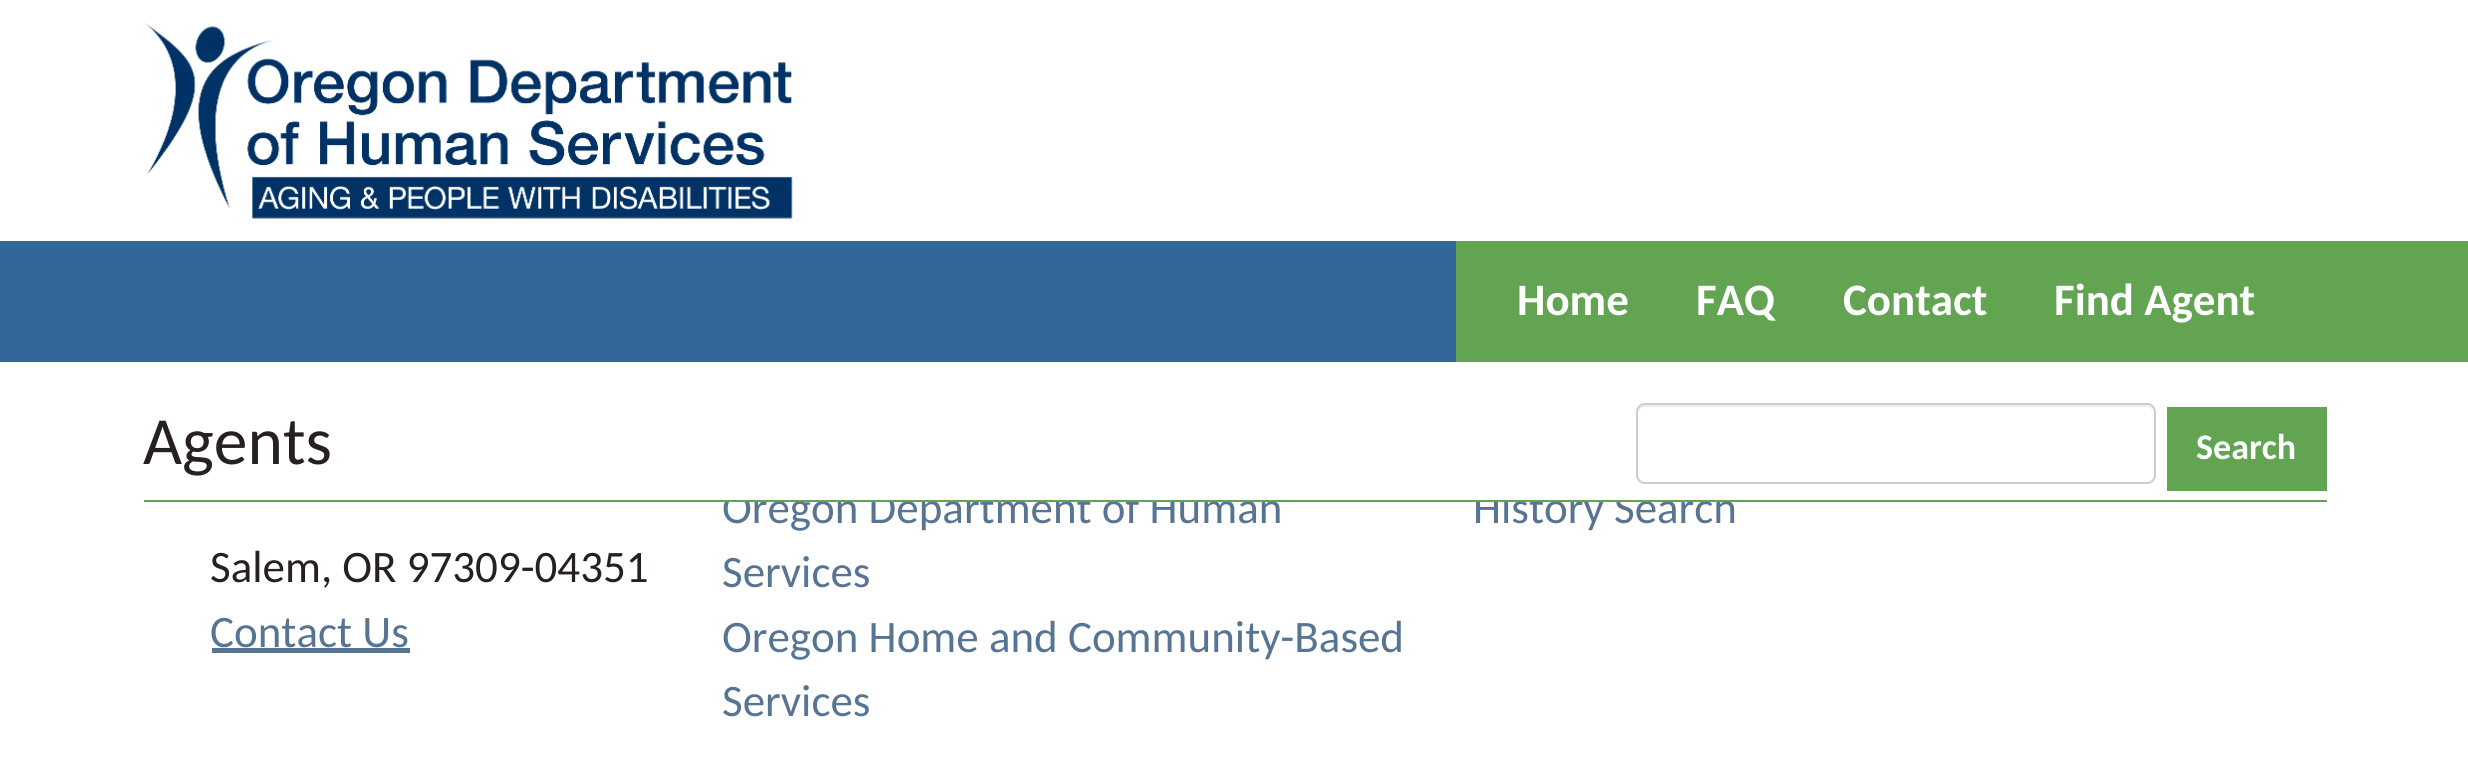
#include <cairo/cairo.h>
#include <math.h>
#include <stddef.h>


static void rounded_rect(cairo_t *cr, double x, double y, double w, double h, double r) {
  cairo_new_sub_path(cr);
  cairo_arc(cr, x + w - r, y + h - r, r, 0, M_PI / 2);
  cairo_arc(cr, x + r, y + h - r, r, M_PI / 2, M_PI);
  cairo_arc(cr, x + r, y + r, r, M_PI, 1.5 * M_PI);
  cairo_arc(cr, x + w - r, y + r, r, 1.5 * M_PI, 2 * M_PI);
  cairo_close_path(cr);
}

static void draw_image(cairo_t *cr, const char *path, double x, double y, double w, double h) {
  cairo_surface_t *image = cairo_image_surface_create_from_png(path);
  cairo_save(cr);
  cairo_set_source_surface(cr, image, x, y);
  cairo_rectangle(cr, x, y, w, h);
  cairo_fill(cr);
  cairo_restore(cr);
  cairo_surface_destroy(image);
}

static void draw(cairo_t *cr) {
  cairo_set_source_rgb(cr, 1, 1, 1);
  cairo_paint(cr);
  draw_image(cr, "images/1.png", 144, 23, 649, 196);
  cairo_set_source_rgb(cr, 51 / 255.0, 102 / 255.0, 153 / 255.0);
  cairo_rectangle(cr, 0, 241, 1456, 121);
  cairo_fill(cr);
  cairo_set_source_rgb(cr, 99 / 255.0, 164 / 255.0, 82 / 255.0);
  cairo_rectangle(cr, 1456, 241, 1012, 121);
  cairo_fill(cr);
  cairo_set_source_rgb(cr, 236 / 255.0, 236 / 255.0, 236 / 255.0);
  cairo_new_path(cr);
  cairo_move_to(cr, 1645, 407);
  cairo_line_to(cr, 2146, 407);
  cairo_curve_to(cr, 2150, 407, 2153, 410, 2153, 414);
  cairo_curve_to(cr, 2153, 410, 2151, 405, 2146, 405);
  cairo_line_to(cr, 1645, 405);
  cairo_curve_to(cr, 1640, 405, 1638, 410, 1638, 414);
  cairo_curve_to(cr, 1638, 410, 1641, 407, 1645, 407);
  cairo_close_path(cr);
  cairo_fill(cr);
  rounded_rect(cr, 1637, 404, 518, 79, 8);
  cairo_set_source_rgb(cr, 204 / 255.0, 204 / 255.0, 204 / 255.0);
  cairo_stroke(cr);
  cairo_set_source_rgb(cr, 99 / 255.0, 164 / 255.0, 82 / 255.0);
  cairo_rectangle(cr, 2167, 407, 160, 84);
  cairo_fill(cr);
  cairo_set_source_rgb(cr, 87 / 255.0, 116 / 255.0, 146 / 255.0);
  cairo_rectangle(cr, 212, 648, 198, 5);
  cairo_fill(cr);
  cairo_select_font_face(cr, "Carlito", CAIRO_FONT_SLANT_NORMAL, CAIRO_FONT_WEIGHT_BOLD);
  cairo_set_font_size(cr, 45);
  cairo_set_source_rgb(cr, 1, 1, 1);
  cairo_move_to(cr, 1517, 315);
  cairo_show_text(cr, "Home");
  cairo_move_to(cr, 1696, 315);
  cairo_show_text(cr, "FAQ");
  cairo_move_to(cr, 1843, 315);
  cairo_show_text(cr, "Contact");
  cairo_move_to(cr, 2054, 315);
  cairo_show_text(cr, "Find Agent");
  cairo_select_font_face(cr, "Carlito", CAIRO_FONT_SLANT_NORMAL, CAIRO_FONT_WEIGHT_NORMAL);
  cairo_set_font_size(cr, 67.5);
  cairo_set_source_rgb(cr, 38 / 255.0, 32 / 255.0, 32 / 255.0);
  cairo_move_to(cr, 143, 464);
  cairo_show_text(cr, "Agents");
  cairo_select_font_face(cr, "Carlito", CAIRO_FONT_SLANT_NORMAL, CAIRO_FONT_WEIGHT_BOLD);
  cairo_set_font_size(cr, 36);
  cairo_set_source_rgb(cr, 1, 1, 1);
  cairo_move_to(cr, 2196, 459);
  cairo_show_text(cr, "Search");
  cairo_select_font_face(cr, "Carlito", CAIRO_FONT_SLANT_NORMAL, CAIRO_FONT_WEIGHT_NORMAL);
  cairo_set_font_size(cr, 45);
  cairo_set_source_rgb(cr, 38 / 255.0, 32 / 255.0, 32 / 255.0);
  cairo_move_to(cr, 210, 582);
  cairo_show_text(cr, "Salem, OR 97309-04351");
  cairo_set_source_rgb(cr, 87 / 255.0, 116 / 255.0, 146 / 255.0);
  cairo_move_to(cr, 210, 647);
  cairo_show_text(cr, "Contact Us");
  cairo_move_to(cr, 722, 523);
  cairo_show_text(cr, "Oregon Department of Human");
  cairo_move_to(cr, 722, 587);
  cairo_show_text(cr, "Services");
  cairo_move_to(cr, 722, 652);
  cairo_show_text(cr, "Oregon Home and Community-Based");
  cairo_move_to(cr, 722, 716);
  cairo_show_text(cr, "Services");
  cairo_move_to(cr, 1473, 523);
  cairo_show_text(cr, "History Search");
  cairo_set_source_rgb(cr, 99 / 255.0, 164 / 255.0, 82 / 255.0);
  cairo_rectangle(cr, 144, 500, 2183, 2);
  cairo_fill(cr);
  cairo_set_source_rgb(cr, 1, 1, 1);
  cairo_rectangle(cr, 726, 491, 995, 9);
  cairo_fill(cr);
}

int main(void) {
  cairo_surface_t *surface = cairo_image_surface_create(CAIRO_FORMAT_RGB24, 2468, 765);
  cairo_t *cr = cairo_create(surface);
  cairo_font_options_t *options = cairo_font_options_create();
  cairo_font_options_set_hint_metrics(options, CAIRO_HINT_METRICS_OFF);
  cairo_font_options_set_hint_style(options, CAIRO_HINT_STYLE_NONE);
  cairo_set_font_options(cr, options);
  cairo_set_miter_limit(cr, 4);
  draw(cr);
  cairo_surface_write_to_png(surface, "out.png");
  cairo_font_options_destroy(options);
  cairo_destroy(cr);
  cairo_surface_destroy(surface);
  return 0;
}
